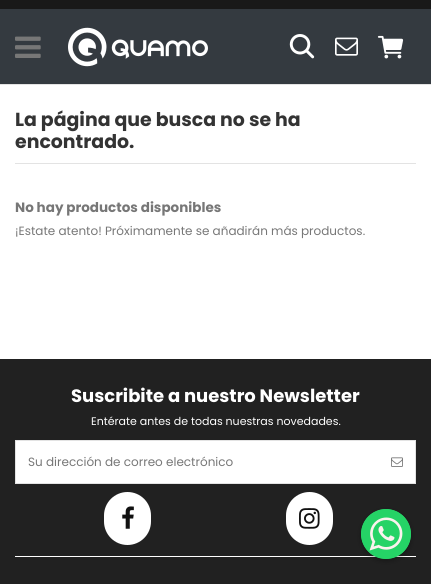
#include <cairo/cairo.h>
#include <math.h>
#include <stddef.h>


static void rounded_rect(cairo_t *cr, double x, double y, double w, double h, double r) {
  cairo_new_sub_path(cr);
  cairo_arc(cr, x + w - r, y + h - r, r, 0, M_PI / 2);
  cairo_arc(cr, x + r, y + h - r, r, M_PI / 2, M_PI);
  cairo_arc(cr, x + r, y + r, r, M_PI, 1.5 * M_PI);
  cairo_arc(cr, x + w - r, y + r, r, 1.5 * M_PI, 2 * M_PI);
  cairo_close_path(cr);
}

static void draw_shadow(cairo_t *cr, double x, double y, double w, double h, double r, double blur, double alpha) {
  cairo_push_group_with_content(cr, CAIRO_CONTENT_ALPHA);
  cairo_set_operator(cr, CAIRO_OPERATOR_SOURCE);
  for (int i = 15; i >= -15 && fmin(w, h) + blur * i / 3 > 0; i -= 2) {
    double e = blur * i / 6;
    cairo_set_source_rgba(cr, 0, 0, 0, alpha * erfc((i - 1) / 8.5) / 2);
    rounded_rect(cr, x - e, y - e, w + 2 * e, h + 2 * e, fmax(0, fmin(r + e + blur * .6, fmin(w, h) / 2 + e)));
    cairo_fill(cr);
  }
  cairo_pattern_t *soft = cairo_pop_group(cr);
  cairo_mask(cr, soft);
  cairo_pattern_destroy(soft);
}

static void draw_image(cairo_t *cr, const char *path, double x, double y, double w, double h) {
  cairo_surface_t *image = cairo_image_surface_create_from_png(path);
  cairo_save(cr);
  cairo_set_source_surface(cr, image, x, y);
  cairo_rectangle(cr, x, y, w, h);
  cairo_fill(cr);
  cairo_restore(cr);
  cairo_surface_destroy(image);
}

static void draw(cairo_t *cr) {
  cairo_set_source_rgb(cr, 1, 1, 1);
  cairo_paint(cr);
  cairo_set_source_rgb(cr, 25 / 255.0, 25 / 255.0, 25 / 255.0);
  cairo_rectangle(cr, 0, 0, 431, 9);
  cairo_fill(cr);
  cairo_set_source_rgb(cr, 52 / 255.0, 58 / 255.0, 64 / 255.0);
  cairo_rectangle(cr, 0, 9, 431, 75);
  cairo_fill(cr);
  cairo_set_source_rgb(cr, 227 / 255.0, 227 / 255.0, 227 / 255.0);
  cairo_rectangle(cr, 0, 84, 431, 1);
  cairo_fill(cr);
  draw_image(cr, "images/1.png", 15, 36, 26, 22);
  draw_image(cr, "images/2.png", 68, 27, 140, 40);
  draw_image(cr, "images/3.png", 289, 34, 26, 25);
  draw_image(cr, "images/4.png", 335, 37, 23, 19);
  draw_image(cr, "images/5.png", 377, 35, 27, 24);
  cairo_rectangle(cr, 15, 163, 401, 1);
  cairo_fill(cr);
  cairo_set_source_rgb(cr, 33 / 255.0, 33 / 255.0, 33 / 255.0);
  cairo_rectangle(cr, 0, 359, 431, 225);
  cairo_fill(cr);
  cairo_set_source_rgb(cr, 1, 1, 1);
  cairo_rectangle(cr, 15.5, 440.5, 400, 43);
  cairo_fill_preserve(cr);
  cairo_set_source_rgb(cr, 227 / 255.0, 227 / 255.0, 227 / 255.0);
  cairo_set_line_width(cr, 1);
  cairo_stroke(cr);
  draw_image(cr, "images/6.png", 391, 457, 12, 10);
  cairo_set_source_rgb(cr, 1, 1, 1);
  rounded_rect(cr, 104, 492, 47, 53, 23.5);
  cairo_fill(cr);
  draw_image(cr, "images/7.png", 122, 506, 12, 23);
  rounded_rect(cr, 286, 492, 47, 53, 23.5);
  cairo_fill(cr);
  draw_image(cr, "images/8.png", 299, 508, 21, 21);
  cairo_rectangle(cr, 15, 556, 401, 1);
  cairo_fill(cr);
  cairo_set_source_rgb(cr, 0, 0, 0);
  draw_shadow(cr, 361, 511, 50, 50, 25, 2.5, 0.3);
  cairo_set_source_rgb(cr, 37 / 255.0, 211 / 255.0, 102 / 255.0);
  cairo_arc(cr, 386, 534, 25, 0, 2 * M_PI);
  cairo_fill(cr);
  draw_image(cr, "images/9.png", 361, 509, 50, 50);
  cairo_select_font_face(cr, "Poppins", CAIRO_FONT_SLANT_NORMAL, CAIRO_FONT_WEIGHT_BOLD);
  cairo_set_font_size(cr, 18.9);
  cairo_set_source_rgb(cr, 51 / 255.0, 51 / 255.0, 51 / 255.0);
  cairo_move_to(cr, 15, 126);
  cairo_show_text(cr, "La página que busca no se ha");
  cairo_move_to(cr, 15, 148);
  cairo_show_text(cr, "encontrado.");
  cairo_set_font_size(cr, 13.5);
  cairo_set_source_rgb(cr, 119 / 255.0, 119 / 255.0, 119 / 255.0);
  cairo_move_to(cr, 15, 212);
  cairo_show_text(cr, "No hay productos disponibles");
  cairo_select_font_face(cr, "Poppins", CAIRO_FONT_SLANT_NORMAL, CAIRO_FONT_WEIGHT_NORMAL);
  cairo_set_font_size(cr, 12);
  cairo_move_to(cr, 15, 235);
  cairo_show_text(cr, "¡Estate atento! Próximamente se añadirán más productos.");
  cairo_select_font_face(cr, "Poppins", CAIRO_FONT_SLANT_NORMAL, CAIRO_FONT_WEIGHT_BOLD);
  cairo_set_font_size(cr, 18);
  cairo_set_source_rgb(cr, 1, 1, 1);
  cairo_move_to(cr, 71, 402);
  cairo_show_text(cr, "Suscribite a nuestro Newsletter");
  cairo_select_font_face(cr, "Poppins", CAIRO_FONT_SLANT_NORMAL, CAIRO_FONT_WEIGHT_NORMAL);
  cairo_set_font_size(cr, 11);
  cairo_move_to(cr, 91, 425);
  cairo_show_text(cr, "Entérate antes de todas nuestras novedades.");
  cairo_set_font_size(cr, 12);
  cairo_set_source_rgb(cr, 119 / 255.0, 119 / 255.0, 119 / 255.0);
  cairo_move_to(cr, 28, 466);
  cairo_show_text(cr, "Su dirección de correo electrónico");
}

int main(void) {
  cairo_surface_t *surface = cairo_image_surface_create(CAIRO_FORMAT_RGB24, 431, 584);
  cairo_t *cr = cairo_create(surface);
  cairo_font_options_t *options = cairo_font_options_create();
  cairo_font_options_set_hint_metrics(options, CAIRO_HINT_METRICS_OFF);
  cairo_font_options_set_hint_style(options, CAIRO_HINT_STYLE_NONE);
  cairo_set_font_options(cr, options);
  cairo_set_miter_limit(cr, 4);
  draw(cr);
  cairo_surface_write_to_png(surface, "out.png");
  cairo_font_options_destroy(options);
  cairo_destroy(cr);
  cairo_surface_destroy(surface);
  return 0;
}
